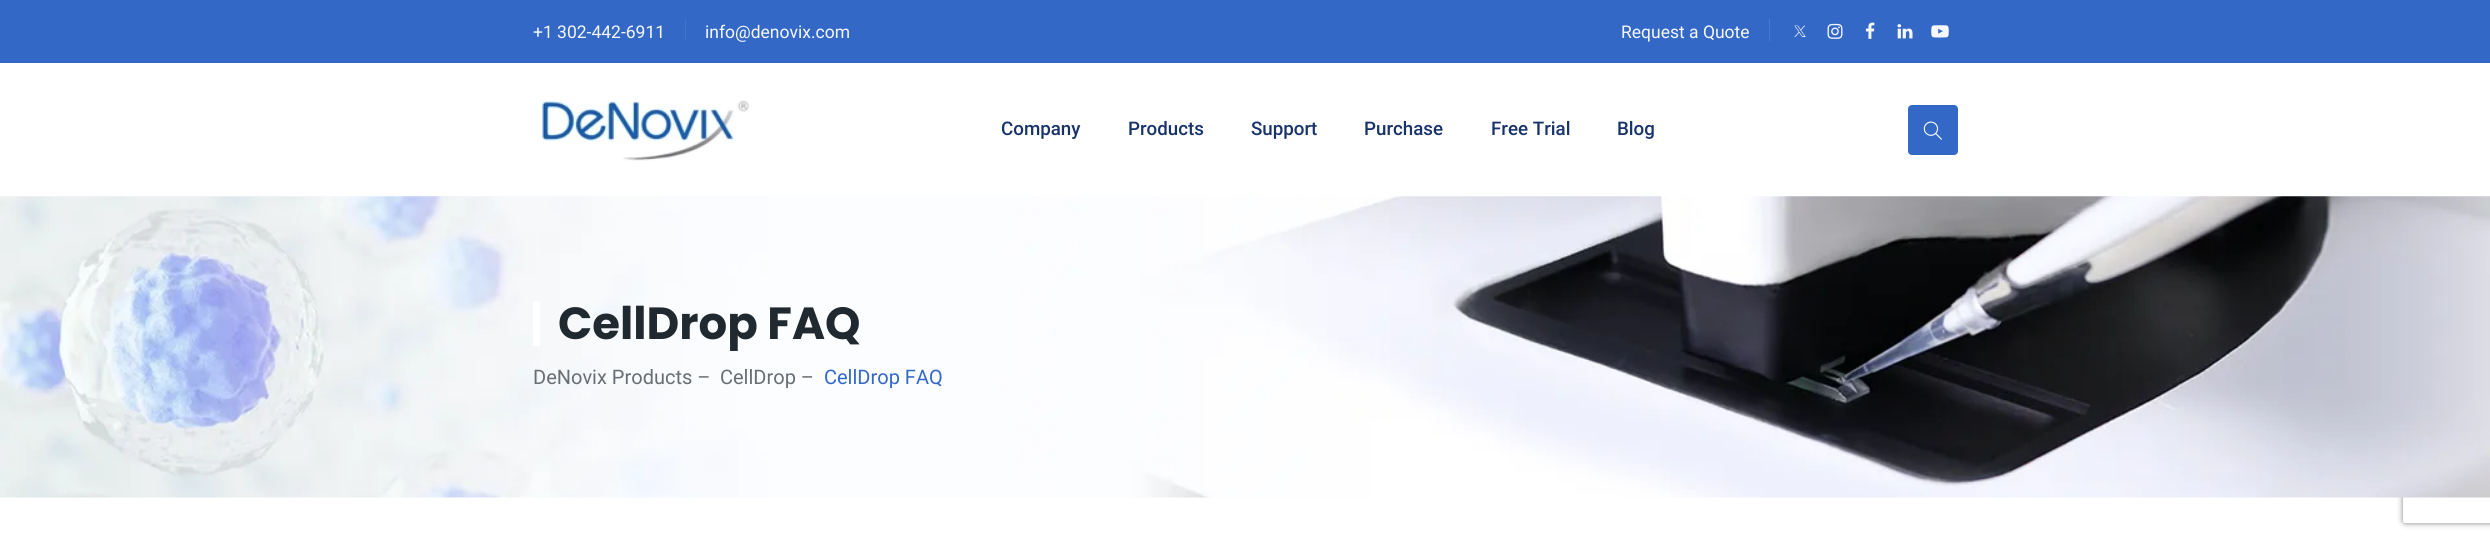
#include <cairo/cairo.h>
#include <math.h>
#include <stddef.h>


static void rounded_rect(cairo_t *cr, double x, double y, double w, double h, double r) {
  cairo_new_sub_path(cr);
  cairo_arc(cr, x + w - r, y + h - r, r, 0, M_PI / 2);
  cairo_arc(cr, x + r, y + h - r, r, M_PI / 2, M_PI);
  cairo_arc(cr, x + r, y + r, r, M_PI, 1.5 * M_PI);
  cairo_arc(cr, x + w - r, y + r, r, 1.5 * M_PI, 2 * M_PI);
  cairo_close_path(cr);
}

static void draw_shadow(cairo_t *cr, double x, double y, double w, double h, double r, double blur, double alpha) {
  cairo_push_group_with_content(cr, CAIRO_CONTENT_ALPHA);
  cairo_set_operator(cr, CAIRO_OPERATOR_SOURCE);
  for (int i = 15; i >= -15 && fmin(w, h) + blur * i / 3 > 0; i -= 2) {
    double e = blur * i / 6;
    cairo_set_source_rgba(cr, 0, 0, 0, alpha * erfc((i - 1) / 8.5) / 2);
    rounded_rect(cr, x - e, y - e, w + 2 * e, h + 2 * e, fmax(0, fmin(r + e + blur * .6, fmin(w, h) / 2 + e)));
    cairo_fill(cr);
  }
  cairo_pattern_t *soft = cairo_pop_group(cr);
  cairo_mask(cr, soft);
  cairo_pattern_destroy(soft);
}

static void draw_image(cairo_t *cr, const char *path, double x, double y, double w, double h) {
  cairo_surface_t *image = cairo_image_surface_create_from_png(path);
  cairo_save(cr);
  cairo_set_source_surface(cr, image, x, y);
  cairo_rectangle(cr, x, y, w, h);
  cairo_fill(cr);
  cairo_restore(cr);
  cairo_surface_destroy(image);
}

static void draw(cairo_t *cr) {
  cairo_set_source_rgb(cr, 1, 1, 1);
  cairo_paint(cr);
  cairo_set_source_rgb(cr, 51 / 255.0, 104 / 255.0, 198 / 255.0);
  cairo_rectangle(cr, 0, 0, 2490, 63);
  cairo_fill(cr);
  cairo_set_source_rgb(cr, 67 / 255.0, 116 / 255.0, 203 / 255.0);
  cairo_rectangle(cr, 685, 19, 1, 22);
  cairo_fill(cr);
  cairo_set_source_rgb(cr, 75 / 255.0, 122 / 255.0, 205 / 255.0);
  cairo_rectangle(cr, 1769, 19, 1, 22);
  cairo_fill(cr);
  draw_image(cr, "images/1.png", 1794, 25, 12, 12);
  draw_image(cr, "images/2.png", 1827, 23, 16, 16);
  draw_image(cr, "images/3.png", 1865, 22, 10, 17);
  draw_image(cr, "images/4.png", 1897, 24, 16, 15);
  draw_image(cr, "images/5.png", 1931, 25, 18, 13);
  draw_image(cr, "images/6.png", 541, 100, 208, 61);
  cairo_set_source_rgb(cr, 51 / 255.0, 104 / 255.0, 198 / 255.0);
  rounded_rect(cr, 1908.5, 105.5, 49, 49, 3.5);
  cairo_fill_preserve(cr);
  cairo_set_line_width(cr, 1);
  cairo_stroke(cr);
  draw_image(cr, "images/7.png", 1923, 121, 19, 19);
  cairo_save(cr);
  cairo_set_fill_rule(cr, CAIRO_FILL_RULE_EVEN_ODD);
  cairo_new_path(cr);
  cairo_move_to(cr, 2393, 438);
  cairo_line_to(cr, 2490, 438);
  cairo_line_to(cr, 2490, 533);
  cairo_line_to(cr, 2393, 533);
  cairo_close_path(cr);
  cairo_move_to(cr, 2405.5, 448);
  cairo_line_to(cr, 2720.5, 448);
  cairo_curve_to(cr, 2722, 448, 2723, 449, 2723, 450.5);
  cairo_line_to(cr, 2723, 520.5);
  cairo_curve_to(cr, 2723, 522, 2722, 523, 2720.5, 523);
  cairo_line_to(cr, 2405.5, 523);
  cairo_curve_to(cr, 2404, 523, 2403, 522, 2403, 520.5);
  cairo_line_to(cr, 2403, 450.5);
  cairo_curve_to(cr, 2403, 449, 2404, 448, 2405.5, 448);
  cairo_close_path(cr);
  cairo_clip(cr);
  cairo_set_source_rgb(cr, 128 / 255.0, 128 / 255.0, 128 / 255.0);
  draw_shadow(cr, 2403, 448, 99, 75, 2.5, 3, 1);
  cairo_restore(cr);
  draw_image(cr, "images/8.png", 0, 196, 2490, 302);
  cairo_set_source_rgb(cr, 1, 1, 1);
  cairo_rectangle(cr, 533, 301, 7, 45);
  cairo_fill(cr);
  cairo_select_font_face(cr, "Roboto", CAIRO_FONT_SLANT_NORMAL, CAIRO_FONT_WEIGHT_NORMAL);
  cairo_set_font_size(cr, 17.5);
  cairo_set_source_rgb(cr, 245 / 255.0, 247 / 255.0, 252 / 255.0);
  cairo_move_to(cr, 533, 38);
  cairo_show_text(cr, "+1 302-442-6911");
  cairo_move_to(cr, 705, 38);
  cairo_show_text(cr, "info@denovix.com");
  cairo_move_to(cr, 1621, 38);
  cairo_show_text(cr, "Request a Quote");
  cairo_select_font_face(cr, "Roboto Medium", CAIRO_FONT_SLANT_NORMAL, CAIRO_FONT_WEIGHT_NORMAL);
  cairo_set_font_size(cr, 18.75);
  cairo_set_source_rgb(cr, 24 / 255.0, 51 / 255.0, 108 / 255.0);
  cairo_move_to(cr, 1001, 135);
  cairo_show_text(cr, "Company");
  cairo_move_to(cr, 1128, 135);
  cairo_show_text(cr, "Products");
  cairo_move_to(cr, 1251, 135);
  cairo_show_text(cr, "Support");
  cairo_move_to(cr, 1364, 135);
  cairo_show_text(cr, "Purchase");
  cairo_move_to(cr, 1491, 135);
  cairo_show_text(cr, "Free Trial");
  cairo_move_to(cr, 1617, 135);
  cairo_show_text(cr, "Blog");
  cairo_select_font_face(cr, "Poppins", CAIRO_FONT_SLANT_NORMAL, CAIRO_FONT_WEIGHT_BOLD);
  cairo_set_font_size(cr, 45);
  cairo_set_source_rgb(cr, 32 / 255.0, 41 / 255.0, 47 / 255.0);
  cairo_move_to(cr, 558, 339);
  cairo_show_text(cr, "CellDrop FAQ");
  cairo_select_font_face(cr, "Roboto", CAIRO_FONT_SLANT_NORMAL, CAIRO_FONT_WEIGHT_NORMAL);
  cairo_set_font_size(cr, 20);
  cairo_set_source_rgb(cr, 104 / 255.0, 110 / 255.0, 115 / 255.0);
  cairo_move_to(cr, 533, 384);
  cairo_show_text(cr, "DeNovix Products –");
  cairo_move_to(cr, 720, 384);
  cairo_show_text(cr, "CellDrop –");
  cairo_set_source_rgb(cr, 51 / 255.0, 104 / 255.0, 198 / 255.0);
  cairo_move_to(cr, 824, 384);
  cairo_show_text(cr, "CellDrop FAQ");
}

int main(void) {
  cairo_surface_t *surface = cairo_image_surface_create(CAIRO_FORMAT_RGB24, 2490, 540);
  cairo_t *cr = cairo_create(surface);
  cairo_font_options_t *options = cairo_font_options_create();
  cairo_font_options_set_hint_metrics(options, CAIRO_HINT_METRICS_OFF);
  cairo_font_options_set_hint_style(options, CAIRO_HINT_STYLE_NONE);
  cairo_set_font_options(cr, options);
  cairo_set_miter_limit(cr, 4);
  draw(cr);
  cairo_surface_write_to_png(surface, "out.png");
  cairo_font_options_destroy(options);
  cairo_destroy(cr);
  cairo_surface_destroy(surface);
  return 0;
}
